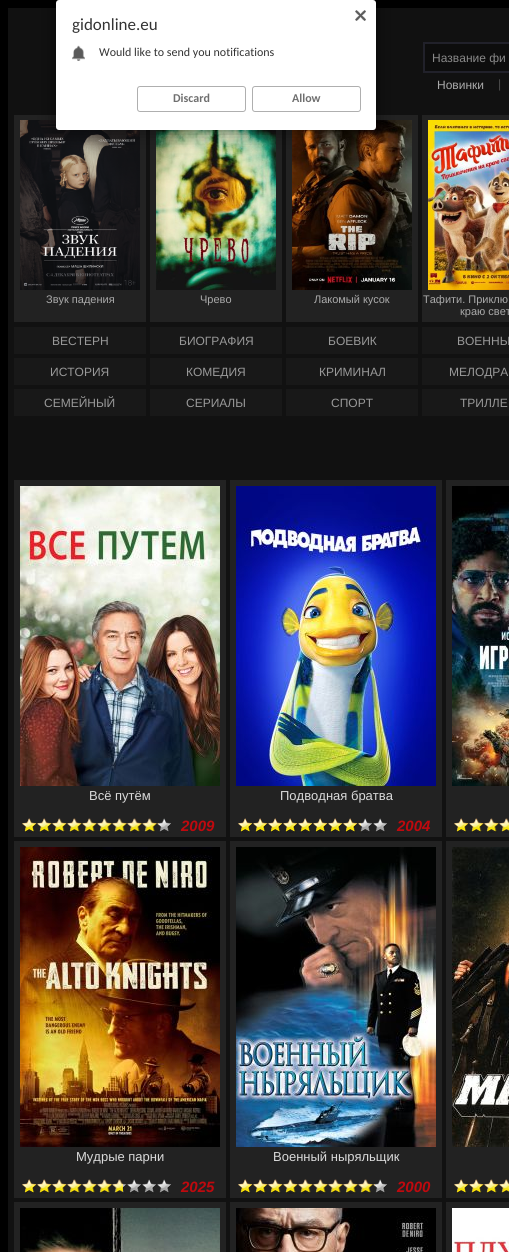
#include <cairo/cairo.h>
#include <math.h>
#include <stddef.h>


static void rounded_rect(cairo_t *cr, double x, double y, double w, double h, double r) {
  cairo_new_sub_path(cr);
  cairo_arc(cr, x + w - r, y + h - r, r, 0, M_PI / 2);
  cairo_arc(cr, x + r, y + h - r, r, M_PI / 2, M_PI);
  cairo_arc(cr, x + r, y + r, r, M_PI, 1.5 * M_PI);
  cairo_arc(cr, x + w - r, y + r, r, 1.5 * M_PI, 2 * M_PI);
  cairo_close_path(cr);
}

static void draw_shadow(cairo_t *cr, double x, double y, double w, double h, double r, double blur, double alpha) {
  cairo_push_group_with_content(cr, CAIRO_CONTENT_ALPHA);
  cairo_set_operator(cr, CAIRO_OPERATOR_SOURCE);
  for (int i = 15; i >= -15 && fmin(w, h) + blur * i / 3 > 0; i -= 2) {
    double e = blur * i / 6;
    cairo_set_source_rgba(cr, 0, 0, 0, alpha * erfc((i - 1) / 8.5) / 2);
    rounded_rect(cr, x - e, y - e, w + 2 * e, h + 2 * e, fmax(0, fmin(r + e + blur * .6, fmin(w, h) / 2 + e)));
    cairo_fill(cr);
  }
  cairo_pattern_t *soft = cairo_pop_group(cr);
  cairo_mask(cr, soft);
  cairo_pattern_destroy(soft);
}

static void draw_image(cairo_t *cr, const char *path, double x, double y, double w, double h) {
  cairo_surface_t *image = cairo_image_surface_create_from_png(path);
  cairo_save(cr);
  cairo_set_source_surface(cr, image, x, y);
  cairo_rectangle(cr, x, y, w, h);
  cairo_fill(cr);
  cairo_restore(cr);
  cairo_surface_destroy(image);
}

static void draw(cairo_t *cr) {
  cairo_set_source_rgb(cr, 0, 0, 0);
  cairo_paint(cr);
  cairo_set_source_rgb(cr, 17 / 255.0, 17 / 255.0, 17 / 255.0);
  cairo_rectangle(cr, 8, 8, 501, 1244);
  cairo_fill(cr);
  cairo_set_source_rgb(cr, 34 / 255.0, 34 / 255.0, 34 / 255.0);
  cairo_rectangle(cr, 14, 115, 132, 207);
  cairo_fill(cr);
  draw_image(cr, "images/3.png", 20, 120, 120, 170);
  cairo_rectangle(cr, 150, 130, 132, 192);
  cairo_fill(cr);
  draw_image(cr, "images/4.png", 156, 130, 120, 160);
  cairo_rectangle(cr, 286, 115, 132, 207);
  cairo_fill(cr);
  draw_image(cr, "images/5.png", 292, 120, 120, 170);
  cairo_set_source_rgb(cr, 0, 0, 0);
  draw_shadow(cr, 56, 0, 320, 130, 3, 10, 0.54);
  cairo_set_source_rgb(cr, 1, 1, 1);
  rounded_rect(cr, 56, 0, 320, 130, 3);
  cairo_fill(cr);
  draw_image(cr, "images/1.png", 355, 10, 11, 11);
  draw_image(cr, "images/2.png", 72, 45, 13, 16);
  rounded_rect(cr, 137.5, 86.5, 108, 25, 2.5);
  cairo_set_source_rgb(cr, 175 / 255.0, 175 / 255.0, 175 / 255.0);
  cairo_set_line_width(cr, 1);
  cairo_stroke(cr);
  rounded_rect(cr, 252.5, 86.5, 108, 25, 2.5);
  cairo_stroke(cr);
  cairo_set_source_rgb(cr, 13 / 255.0, 13 / 255.0, 13 / 255.0);
  cairo_rectangle(cr, 425, 44, 84, 27);
  cairo_fill(cr);
  cairo_set_source_rgb(cr, 33 / 255.0, 33 / 255.0, 42 / 255.0);
  cairo_rectangle(cr, 423, 42, 86, 2);
  cairo_fill(cr);
  cairo_rectangle(cr, 423, 71, 86, 2);
  cairo_fill(cr);
  cairo_rectangle(cr, 423, 42, 2, 31);
  cairo_fill(cr);
  cairo_set_source_rgb(cr, 34 / 255.0, 34 / 255.0, 34 / 255.0);
  cairo_rectangle(cr, 422, 115, 87, 207);
  cairo_fill(cr);
  draw_image(cr, "images/6.png", 428, 120, 81, 170);
  cairo_set_source_rgb(cr, 24 / 255.0, 24 / 255.0, 24 / 255.0);
  cairo_rectangle(cr, 14, 327, 132, 27);
  cairo_fill(cr);
  cairo_rectangle(cr, 150, 327, 132, 27);
  cairo_fill(cr);
  cairo_rectangle(cr, 286, 327, 132, 27);
  cairo_fill(cr);
  cairo_rectangle(cr, 422, 327, 87, 27);
  cairo_fill(cr);
  cairo_rectangle(cr, 14, 358, 132, 27);
  cairo_fill(cr);
  cairo_rectangle(cr, 150, 358, 132, 27);
  cairo_fill(cr);
  cairo_rectangle(cr, 286, 358, 132, 27);
  cairo_fill(cr);
  cairo_rectangle(cr, 422, 358, 87, 27);
  cairo_fill(cr);
  cairo_rectangle(cr, 14, 389, 132, 27);
  cairo_fill(cr);
  cairo_rectangle(cr, 150, 389, 132, 27);
  cairo_fill(cr);
  cairo_rectangle(cr, 286, 389, 132, 27);
  cairo_fill(cr);
  cairo_rectangle(cr, 422, 389, 87, 27);
  cairo_fill(cr);
  cairo_set_source_rgb(cr, 34 / 255.0, 34 / 255.0, 34 / 255.0);
  cairo_rectangle(cr, 14, 480, 212, 357);
  cairo_fill(cr);
  draw_image(cr, "images/7.png", 20, 486, 200, 300);
  draw_image(cr, "images/8.png", 22, 818, 149, 15);
  draw_image(cr, "images/9.png", 22, 818, 137, 14);
  cairo_rectangle(cr, 230, 480, 212, 357);
  cairo_fill(cr);
  draw_image(cr, "images/10.png", 236, 486, 200, 300);
  draw_image(cr, "images/8.png", 238, 818, 149, 15);
  draw_image(cr, "images/11.png", 238, 818, 123, 14);
  cairo_rectangle(cr, 446, 480, 63, 357);
  cairo_fill(cr);
  draw_image(cr, "images/12.png", 452, 486, 57, 300);
  draw_image(cr, "images/13.png", 454, 818, 55, 15);
  draw_image(cr, "images/14.png", 454, 818, 55, 14);
  cairo_rectangle(cr, 14, 841, 212, 357);
  cairo_fill(cr);
  draw_image(cr, "images/15.png", 20, 847, 200, 300);
  draw_image(cr, "images/8.png", 22, 1179, 149, 15);
  draw_image(cr, "images/16.png", 22, 1179, 101, 14);
  cairo_rectangle(cr, 230, 841, 212, 357);
  cairo_fill(cr);
  draw_image(cr, "images/17.png", 236, 847, 200, 300);
  draw_image(cr, "images/8.png", 238, 1179, 149, 15);
  draw_image(cr, "images/9.png", 238, 1179, 137, 14);
  cairo_rectangle(cr, 446, 841, 63, 357);
  cairo_fill(cr);
  draw_image(cr, "images/18.png", 452, 847, 57, 300);
  draw_image(cr, "images/13.png", 454, 1179, 55, 15);
  draw_image(cr, "images/19.png", 454, 1179, 55, 14);
  cairo_rectangle(cr, 14, 1202, 212, 50);
  cairo_fill(cr);
  draw_image(cr, "images/20.png", 20, 1208, 200, 44);
  cairo_rectangle(cr, 230, 1202, 212, 50);
  cairo_fill(cr);
  draw_image(cr, "images/21.png", 236, 1208, 200, 44);
  cairo_rectangle(cr, 446, 1202, 63, 50);
  cairo_fill(cr);
  draw_image(cr, "images/22.png", 452, 1208, 57, 44);
  cairo_select_font_face(cr, "Carlito", CAIRO_FONT_SLANT_NORMAL, CAIRO_FONT_WEIGHT_NORMAL);
  cairo_set_font_size(cr, 17);
  cairo_set_source_rgb(cr, 51 / 255.0, 51 / 255.0, 51 / 255.0);
  cairo_move_to(cr, 72, 30);
  cairo_show_text(cr, "gidonline.eu");
  cairo_set_font_size(cr, 12);
  cairo_move_to(cr, 99, 56);
  cairo_show_text(cr, "Would like to send you notifications");
  cairo_select_font_face(cr, "Carlito", CAIRO_FONT_SLANT_NORMAL, CAIRO_FONT_WEIGHT_BOLD);
  cairo_set_source_rgb(cr, 111 / 255.0, 111 / 255.0, 111 / 255.0);
  cairo_move_to(cr, 173, 102);
  cairo_show_text(cr, "Discard");
  cairo_move_to(cr, 292, 102);
  cairo_show_text(cr, "Allow");
  cairo_select_font_face(cr, "Liberation Sans", CAIRO_FONT_SLANT_NORMAL, CAIRO_FONT_WEIGHT_NORMAL);
  cairo_set_source_rgb(cr, 136 / 255.0, 136 / 255.0, 136 / 255.0);
  cairo_move_to(cr, 432, 62);
  cairo_show_text(cr, "Название фи");
  cairo_set_source_rgb(cr, 170 / 255.0, 170 / 255.0, 170 / 255.0);
  cairo_move_to(cr, 437, 89);
  cairo_show_text(cr, "Новинки");
  cairo_set_source_rgb(cr, 76 / 255.0, 76 / 255.0, 76 / 255.0);
  cairo_move_to(cr, 498, 88);
  cairo_show_text(cr, "|");
  cairo_set_font_size(cr, 11);
  cairo_set_source_rgb(cr, 170 / 255.0, 170 / 255.0, 170 / 255.0);
  cairo_move_to(cr, 46, 303);
  cairo_show_text(cr, "Звук падения");
  cairo_move_to(cr, 200, 303);
  cairo_show_text(cr, "Чрево");
  cairo_move_to(cr, 314, 303);
  cairo_show_text(cr, "Лакомый кусок");
  cairo_move_to(cr, 423, 303);
  cairo_show_text(cr, "Тафити. Приклю");
  cairo_move_to(cr, 460, 315);
  cairo_show_text(cr, "краю свет");
  cairo_set_font_size(cr, 12);
  cairo_set_source_rgb(cr, 153 / 255.0, 153 / 255.0, 153 / 255.0);
  cairo_move_to(cr, 52, 345);
  cairo_show_text(cr, "ВЕСТЕРН");
  cairo_move_to(cr, 179, 345);
  cairo_show_text(cr, "БИОГРАФИЯ");
  cairo_move_to(cr, 328, 345);
  cairo_show_text(cr, "БОЕВИК");
  cairo_move_to(cr, 457, 345);
  cairo_show_text(cr, "ВОЕННЫ");
  cairo_move_to(cr, 50, 376);
  cairo_show_text(cr, "ИСТОРИЯ");
  cairo_move_to(cr, 186, 376);
  cairo_show_text(cr, "КОМЕДИЯ");
  cairo_move_to(cr, 319, 376);
  cairo_show_text(cr, "КРИМИНАЛ");
  cairo_move_to(cr, 449, 376);
  cairo_show_text(cr, "МЕЛОДРА");
  cairo_move_to(cr, 44, 407);
  cairo_show_text(cr, "СЕМЕЙНЫЙ");
  cairo_move_to(cr, 186, 407);
  cairo_show_text(cr, "СЕРИАЛЫ");
  cairo_move_to(cr, 331, 407);
  cairo_show_text(cr, "СПОРТ");
  cairo_move_to(cr, 460, 407);
  cairo_show_text(cr, "ТРИЛЛЕ");
  cairo_set_font_size(cr, 13);
  cairo_set_source_rgb(cr, 218 / 255.0, 218 / 255.0, 218 / 255.0);
  cairo_move_to(cr, 89, 800);
  cairo_show_text(cr, "Всё путём");
  cairo_select_font_face(cr, "Liberation Sans", CAIRO_FONT_SLANT_ITALIC, CAIRO_FONT_WEIGHT_BOLD);
  cairo_set_font_size(cr, 15);
  cairo_set_source_rgb(cr, 191 / 255.0, 9 / 255.0, 14 / 255.0);
  cairo_move_to(cr, 181, 831);
  cairo_show_text(cr, "2009");
  cairo_select_font_face(cr, "Liberation Sans", CAIRO_FONT_SLANT_NORMAL, CAIRO_FONT_WEIGHT_NORMAL);
  cairo_set_font_size(cr, 13);
  cairo_set_source_rgb(cr, 218 / 255.0, 218 / 255.0, 218 / 255.0);
  cairo_move_to(cr, 280, 800);
  cairo_show_text(cr, "Подводная братва");
  cairo_select_font_face(cr, "Liberation Sans", CAIRO_FONT_SLANT_ITALIC, CAIRO_FONT_WEIGHT_BOLD);
  cairo_set_font_size(cr, 15);
  cairo_set_source_rgb(cr, 191 / 255.0, 9 / 255.0, 14 / 255.0);
  cairo_move_to(cr, 397, 831);
  cairo_show_text(cr, "2004");
  cairo_select_font_face(cr, "Liberation Sans", CAIRO_FONT_SLANT_NORMAL, CAIRO_FONT_WEIGHT_NORMAL);
  cairo_set_font_size(cr, 13);
  cairo_set_source_rgb(cr, 218 / 255.0, 218 / 255.0, 218 / 255.0);
  cairo_move_to(cr, 76, 1161);
  cairo_show_text(cr, "Мудрые парни");
  cairo_select_font_face(cr, "Liberation Sans", CAIRO_FONT_SLANT_ITALIC, CAIRO_FONT_WEIGHT_BOLD);
  cairo_set_font_size(cr, 15);
  cairo_set_source_rgb(cr, 191 / 255.0, 9 / 255.0, 14 / 255.0);
  cairo_move_to(cr, 181, 1192);
  cairo_show_text(cr, "2025");
  cairo_select_font_face(cr, "Liberation Sans", CAIRO_FONT_SLANT_NORMAL, CAIRO_FONT_WEIGHT_NORMAL);
  cairo_set_font_size(cr, 13);
  cairo_set_source_rgb(cr, 218 / 255.0, 218 / 255.0, 218 / 255.0);
  cairo_move_to(cr, 273, 1161);
  cairo_show_text(cr, "Военный ныряльщик");
  cairo_select_font_face(cr, "Liberation Sans", CAIRO_FONT_SLANT_ITALIC, CAIRO_FONT_WEIGHT_BOLD);
  cairo_set_font_size(cr, 15);
  cairo_set_source_rgb(cr, 191 / 255.0, 9 / 255.0, 14 / 255.0);
  cairo_move_to(cr, 397, 1192);
  cairo_show_text(cr, "2000");
}

int main(void) {
  cairo_surface_t *surface = cairo_image_surface_create(CAIRO_FORMAT_RGB24, 509, 1252);
  cairo_t *cr = cairo_create(surface);
  cairo_font_options_t *options = cairo_font_options_create();
  cairo_font_options_set_hint_metrics(options, CAIRO_HINT_METRICS_OFF);
  cairo_font_options_set_hint_style(options, CAIRO_HINT_STYLE_NONE);
  cairo_set_font_options(cr, options);
  cairo_set_miter_limit(cr, 4);
  draw(cr);
  cairo_surface_write_to_png(surface, "out.png");
  cairo_font_options_destroy(options);
  cairo_destroy(cr);
  cairo_surface_destroy(surface);
  return 0;
}
